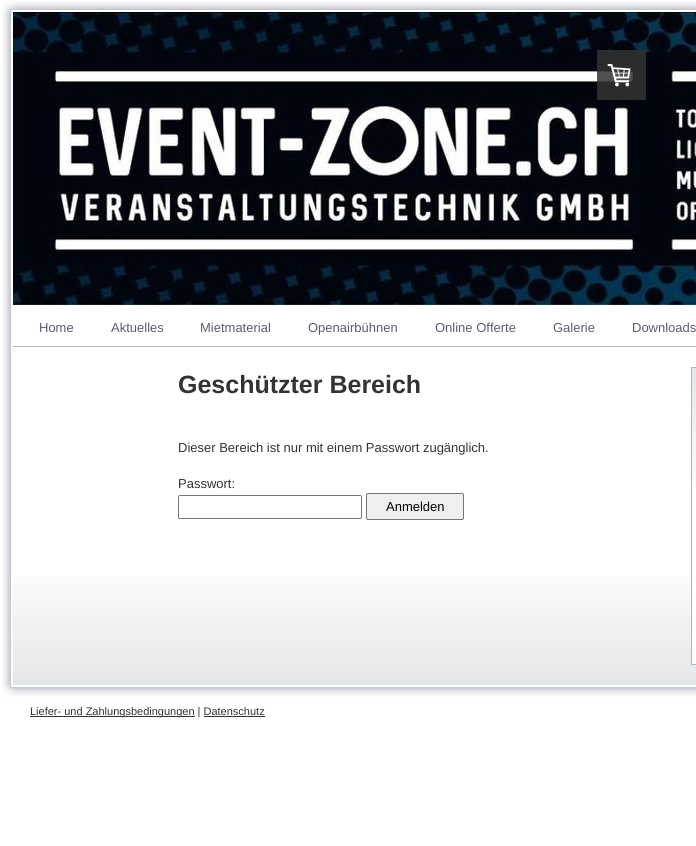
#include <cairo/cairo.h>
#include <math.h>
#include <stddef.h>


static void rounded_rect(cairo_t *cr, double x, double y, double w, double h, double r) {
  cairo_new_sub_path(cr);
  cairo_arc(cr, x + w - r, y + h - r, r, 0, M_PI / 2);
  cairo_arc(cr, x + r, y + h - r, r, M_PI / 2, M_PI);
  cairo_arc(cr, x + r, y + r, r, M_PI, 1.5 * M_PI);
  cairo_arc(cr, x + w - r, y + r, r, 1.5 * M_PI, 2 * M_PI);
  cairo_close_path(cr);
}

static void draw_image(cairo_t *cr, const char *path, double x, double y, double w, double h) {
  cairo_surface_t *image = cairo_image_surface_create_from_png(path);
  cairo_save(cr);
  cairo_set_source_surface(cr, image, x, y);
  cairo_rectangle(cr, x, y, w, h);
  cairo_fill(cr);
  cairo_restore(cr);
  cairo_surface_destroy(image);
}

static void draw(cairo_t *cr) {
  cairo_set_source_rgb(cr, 1, 1, 1);
  cairo_paint(cr);
  draw_image(cr, "images/1.png", 2, 0, 694, 12);
  draw_image(cr, "images/2.png", 2, 12, 9, 673);
  draw_image(cr, "images/3.png", 13, 12, 683, 294);
  cairo_set_source_rgb(cr, 174 / 255.0, 182 / 255.0, 189 / 255.0);
  cairo_rectangle(cr, 13, 346, 683, 1);
  cairo_fill(cr);
  draw_image(cr, "images/4.png", 13, 576, 683, 109);
  rounded_rect(cr, 178.5, 495.5, 183, 23, 1.5);
  cairo_set_source_rgb(cr, 118 / 255.0, 118 / 255.0, 118 / 255.0);
  cairo_set_line_width(cr, 1);
  cairo_stroke(cr);
  cairo_set_source_rgb(cr, 239 / 255.0, 239 / 255.0, 239 / 255.0);
  rounded_rect(cr, 366.5, 493.5, 97, 26, 1.5);
  cairo_fill_preserve(cr);
  cairo_set_source_rgb(cr, 118 / 255.0, 118 / 255.0, 118 / 255.0);
  cairo_stroke(cr);
  cairo_set_source_rgb(cr, 1, 1, 1);
  cairo_rectangle(cr, 692, 576, 4, 89);
  cairo_fill(cr);
  draw_image(cr, "images/5.png", 692, 368, 4, 121);
  cairo_rectangle(cr, 691.5, 367.5, 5, 297);
  cairo_set_source_rgb(cr, 174 / 255.0, 182 / 255.0, 189 / 255.0);
  cairo_stroke(cr);
  cairo_set_source_rgba(cr, 51 / 255.0, 51 / 255.0, 51 / 255.0, 0.85);
  rounded_rect(cr, 597, 50, 49, 50, 1);
  cairo_fill(cr);
  draw_image(cr, "images/6.png", 607, 64, 24, 23);
  draw_image(cr, "images/7.png", 2, 685, 694, 12);
  cairo_set_source_rgb(cr, 51 / 255.0, 51 / 255.0, 51 / 255.0);
  cairo_rectangle(cr, 30, 716, 165, 1);
  cairo_fill(cr);
  cairo_rectangle(cr, 204, 716, 61, 1);
  cairo_fill(cr);
  cairo_select_font_face(cr, "Liberation Sans", CAIRO_FONT_SLANT_NORMAL, CAIRO_FONT_WEIGHT_NORMAL);
  cairo_set_font_size(cr, 13);
  cairo_set_source_rgb(cr, 94 / 255.0, 91 / 255.0, 113 / 255.0);
  cairo_move_to(cr, 39, 332);
  cairo_show_text(cr, "Home");
  cairo_move_to(cr, 111, 332);
  cairo_show_text(cr, "Aktuelles");
  cairo_move_to(cr, 200, 332);
  cairo_show_text(cr, "Mietmaterial");
  cairo_move_to(cr, 308, 332);
  cairo_show_text(cr, "Openairbühnen");
  cairo_move_to(cr, 435, 332);
  cairo_show_text(cr, "Online Offerte");
  cairo_move_to(cr, 553, 332);
  cairo_show_text(cr, "Galerie");
  cairo_move_to(cr, 632, 332);
  cairo_show_text(cr, "Downloads");
  cairo_select_font_face(cr, "Liberation Sans", CAIRO_FONT_SLANT_NORMAL, CAIRO_FONT_WEIGHT_BOLD);
  cairo_set_font_size(cr, 25);
  cairo_set_source_rgb(cr, 51 / 255.0, 51 / 255.0, 51 / 255.0);
  cairo_move_to(cr, 178, 393);
  cairo_show_text(cr, "Geschützter Bereich");
  cairo_select_font_face(cr, "Liberation Sans", CAIRO_FONT_SLANT_NORMAL, CAIRO_FONT_WEIGHT_NORMAL);
  cairo_set_font_size(cr, 13);
  cairo_move_to(cr, 178, 452);
  cairo_show_text(cr, "Dieser Bereich ist nur mit einem Passwort zugänglich.");
  cairo_move_to(cr, 178, 488);
  cairo_show_text(cr, "Passwort:");
  cairo_set_source_rgb(cr, 0, 0, 0);
  cairo_move_to(cr, 386, 511);
  cairo_show_text(cr, "Anmelden");
  cairo_set_font_size(cr, 11);
  cairo_set_source_rgb(cr, 51 / 255.0, 51 / 255.0, 51 / 255.0);
  cairo_move_to(cr, 30, 715);
  cairo_show_text(cr, "Liefer- und Zahlungsbedingungen | Datenschutz");
}

int main(void) {
  cairo_surface_t *surface = cairo_image_surface_create(CAIRO_FORMAT_RGB24, 696, 846);
  cairo_t *cr = cairo_create(surface);
  cairo_font_options_t *options = cairo_font_options_create();
  cairo_font_options_set_hint_metrics(options, CAIRO_HINT_METRICS_OFF);
  cairo_font_options_set_hint_style(options, CAIRO_HINT_STYLE_NONE);
  cairo_set_font_options(cr, options);
  cairo_set_miter_limit(cr, 4);
  draw(cr);
  cairo_surface_write_to_png(surface, "out.png");
  cairo_font_options_destroy(options);
  cairo_destroy(cr);
  cairo_surface_destroy(surface);
  return 0;
}
